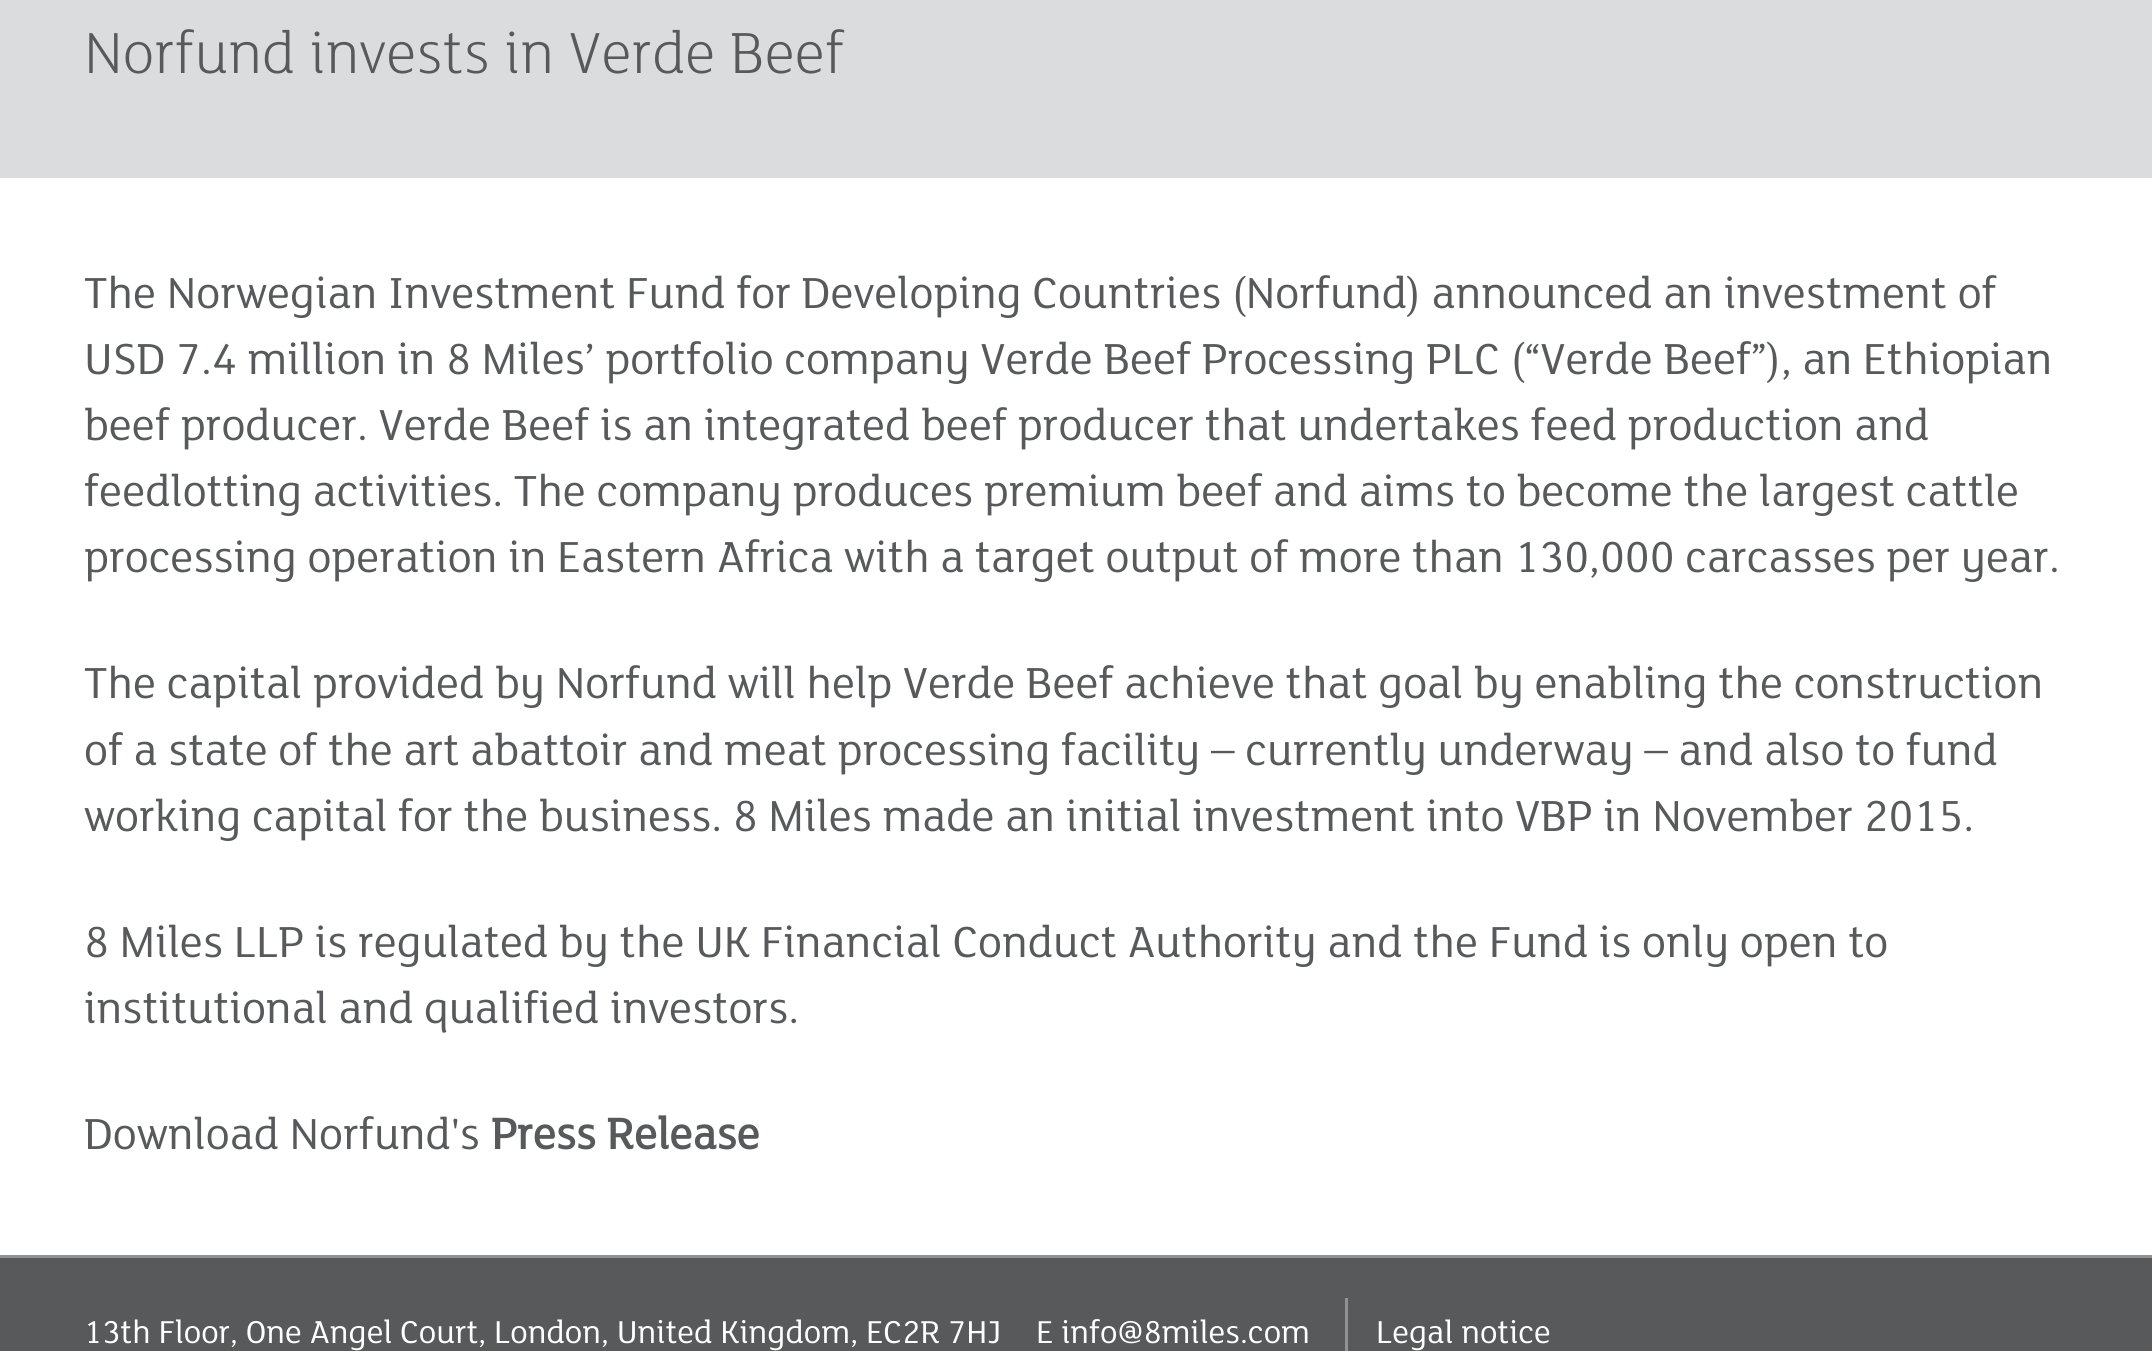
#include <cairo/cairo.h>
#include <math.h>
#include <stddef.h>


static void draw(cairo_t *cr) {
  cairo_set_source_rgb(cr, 1, 1, 1);
  cairo_paint(cr);
  cairo_set_source_rgb(cr, 219 / 255.0, 220 / 255.0, 221 / 255.0);
  cairo_rectangle(cr, 0, 0, 2152, 178);
  cairo_fill(cr);
  cairo_set_source_rgb(cr, 88 / 255.0, 89 / 255.0, 91 / 255.0);
  cairo_rectangle(cr, 0, 1258, 2152, 93);
  cairo_fill(cr);
  cairo_set_source_rgb(cr, 146 / 255.0, 147 / 255.0, 148 / 255.0);
  cairo_rectangle(cr, 0, 1255, 2152, 3);
  cairo_fill(cr);
  cairo_set_source_rgb(cr, 145 / 255.0, 147 / 255.0, 150 / 255.0);
  cairo_rectangle(cr, 1345, 1298, 3, 53);
  cairo_fill(cr);
  cairo_select_font_face(cr, "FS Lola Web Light", CAIRO_FONT_SLANT_NORMAL, CAIRO_FONT_WEIGHT_NORMAL);
  cairo_set_font_size(cr, 63);
  cairo_set_source_rgb(cr, 88 / 255.0, 89 / 255.0, 91 / 255.0);
  cairo_move_to(cr, 84, 73);
  cairo_show_text(cr, "Norfund invests in Verde Beef");
  cairo_select_font_face(cr, "FS Lola Web", CAIRO_FONT_SLANT_NORMAL, CAIRO_FONT_WEIGHT_NORMAL);
  cairo_set_font_size(cr, 47.25);
  cairo_move_to(cr, 84, 308);
  cairo_show_text(cr, "The Norwegian Investment Fund for Developing Countries (Norfund) announced an investment of");
  cairo_move_to(cr, 84, 374);
  cairo_show_text(cr, "USD 7.4 million in 8 Miles’ portfolio company Verde Beef Processing PLC (“Verde Beef”), an Ethiopian");
  cairo_move_to(cr, 84, 440);
  cairo_show_text(cr, "beef producer. Verde Beef is an integrated beef producer that undertakes feed production and");
  cairo_move_to(cr, 84, 506);
  cairo_show_text(cr, "feedlotting activities. The company produces premium beef and aims to become the largest cattle");
  cairo_move_to(cr, 84, 572);
  cairo_show_text(cr, "processing operation in Eastern Africa with a target output of more than 130,000 carcasses per year.");
  cairo_move_to(cr, 84, 698);
  cairo_show_text(cr, "The capital provided by Norfund will help Verde Beef achieve that goal by enabling the construction");
  cairo_move_to(cr, 84, 765);
  cairo_show_text(cr, "of a state of the art abattoir and meat processing facility – currently underway – and also to fund");
  cairo_move_to(cr, 84, 831);
  cairo_show_text(cr, "working capital for the business. 8 Miles made an initial investment into VBP in November 2015.");
  cairo_move_to(cr, 84, 957);
  cairo_show_text(cr, "8 Miles LLP is regulated by the UK Financial Conduct Authority and the Fund is only open to");
  cairo_move_to(cr, 84, 1023);
  cairo_show_text(cr, "institutional and qualified investors.");
  cairo_move_to(cr, 84, 1149);
  cairo_show_text(cr, "Download Norfund's");
  cairo_select_font_face(cr, "FS Lola Web", CAIRO_FONT_SLANT_NORMAL, CAIRO_FONT_WEIGHT_BOLD);
  cairo_move_to(cr, 491, 1149);
  cairo_show_text(cr, "Press Release");
  cairo_select_font_face(cr, "FS Lola Web", CAIRO_FONT_SLANT_NORMAL, CAIRO_FONT_WEIGHT_NORMAL);
  cairo_set_font_size(cr, 34.4);
  cairo_set_source_rgb(cr, 1, 1, 1);
  cairo_move_to(cr, 84, 1343);
  cairo_show_text(cr, "13th Floor, One Angel Court, London, United Kingdom, EC2R 7HJ");
  cairo_move_to(cr, 1036, 1343);
  cairo_show_text(cr, "E info@8miles.com");
  cairo_move_to(cr, 1376, 1343);
  cairo_show_text(cr, "Legal notice");
}

int main(void) {
  cairo_surface_t *surface = cairo_image_surface_create(CAIRO_FORMAT_RGB24, 2152, 1351);
  cairo_t *cr = cairo_create(surface);
  cairo_font_options_t *options = cairo_font_options_create();
  cairo_font_options_set_hint_metrics(options, CAIRO_HINT_METRICS_OFF);
  cairo_font_options_set_hint_style(options, CAIRO_HINT_STYLE_NONE);
  cairo_set_font_options(cr, options);
  cairo_set_miter_limit(cr, 4);
  draw(cr);
  cairo_surface_write_to_png(surface, "out.png");
  cairo_font_options_destroy(options);
  cairo_destroy(cr);
  cairo_surface_destroy(surface);
  return 0;
}
